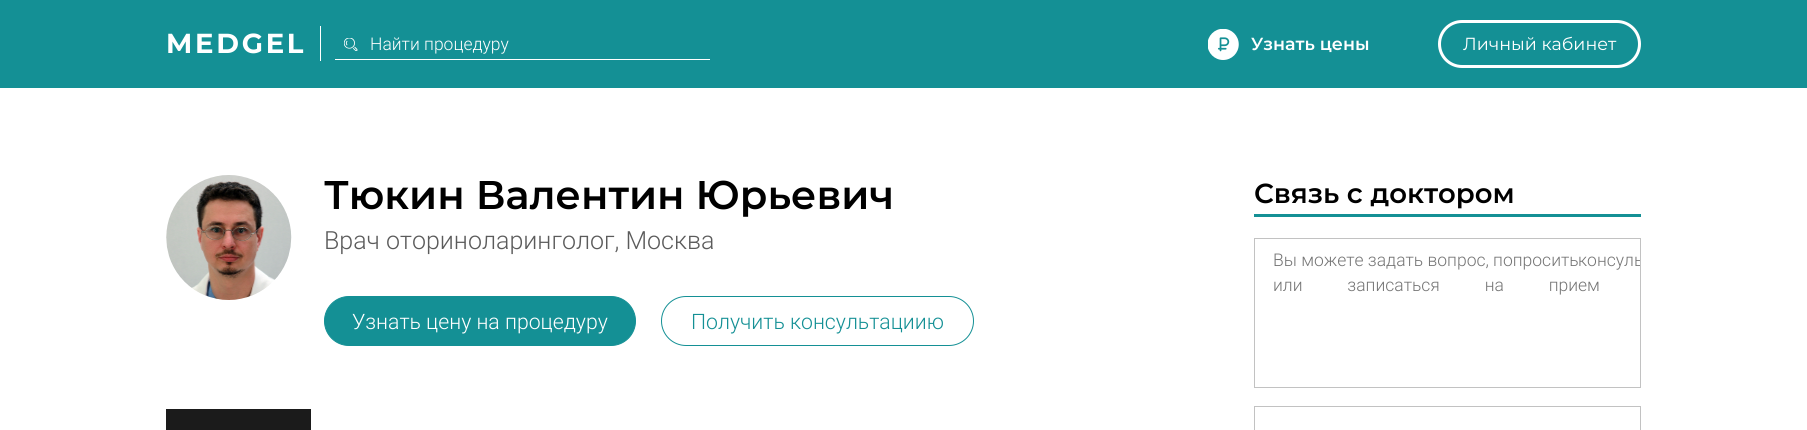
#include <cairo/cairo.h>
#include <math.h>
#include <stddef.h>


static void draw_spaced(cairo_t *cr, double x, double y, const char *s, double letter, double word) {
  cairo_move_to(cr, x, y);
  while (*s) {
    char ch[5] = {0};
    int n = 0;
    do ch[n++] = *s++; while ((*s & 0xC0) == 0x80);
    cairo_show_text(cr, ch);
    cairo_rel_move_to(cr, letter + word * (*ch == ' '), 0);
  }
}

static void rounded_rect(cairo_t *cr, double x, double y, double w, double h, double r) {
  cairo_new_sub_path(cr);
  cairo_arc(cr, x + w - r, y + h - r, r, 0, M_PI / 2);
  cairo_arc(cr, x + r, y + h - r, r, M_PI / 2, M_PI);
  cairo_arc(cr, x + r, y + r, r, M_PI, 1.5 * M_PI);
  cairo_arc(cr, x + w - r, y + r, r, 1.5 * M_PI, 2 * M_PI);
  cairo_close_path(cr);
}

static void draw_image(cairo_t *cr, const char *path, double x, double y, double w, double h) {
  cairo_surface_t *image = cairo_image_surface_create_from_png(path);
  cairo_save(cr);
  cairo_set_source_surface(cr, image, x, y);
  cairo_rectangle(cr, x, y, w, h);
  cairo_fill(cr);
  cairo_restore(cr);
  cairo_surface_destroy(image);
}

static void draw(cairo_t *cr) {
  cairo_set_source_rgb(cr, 1, 1, 1);
  cairo_paint(cr);
  cairo_set_source_rgb(cr, 20 / 255.0, 144 / 255.0, 149 / 255.0);
  cairo_rectangle(cr, 0, 0, 1807, 88);
  cairo_fill(cr);
  cairo_set_source_rgb(cr, 1, 1, 1);
  cairo_rectangle(cr, 320, 26, 1, 35);
  cairo_fill(cr);
  draw_image(cr, "images/1.png", 344, 38, 14, 13);
  cairo_rectangle(cr, 335, 59, 375, 1);
  cairo_fill(cr);
  draw_image(cr, "images/2.png", 1208, 29, 31, 31);
  rounded_rect(cr, 1439.5, 21.5, 200, 45, 22.5);
  cairo_set_line_width(cr, 3);
  cairo_stroke(cr);
  draw_image(cr, "images/3.png", 166, 175, 126, 125);
  cairo_set_source_rgb(cr, 20 / 255.0, 144 / 255.0, 149 / 255.0);
  rounded_rect(cr, 324.5, 296.5, 311, 49, 24.5);
  cairo_fill_preserve(cr);
  cairo_set_line_width(cr, 1);
  cairo_stroke(cr);
  rounded_rect(cr, 661.5, 296.5, 312, 49, 24.5);
  cairo_stroke(cr);
  cairo_set_source_rgb(cr, 27 / 255.0, 27 / 255.0, 27 / 255.0);
  cairo_rectangle(cr, 166, 409, 145, 21);
  cairo_fill(cr);
  cairo_set_source_rgb(cr, 20 / 255.0, 144 / 255.0, 149 / 255.0);
  cairo_rectangle(cr, 1254, 214, 387, 3);
  cairo_fill(cr);
  cairo_rectangle(cr, 1254.5, 238.5, 386, 149);
  cairo_set_source_rgb(cr, 194 / 255.0, 194 / 255.0, 194 / 255.0);
  cairo_stroke(cr);
  cairo_rectangle(cr, 1254.5, 406.5, 386, 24);
  cairo_stroke(cr);
  cairo_select_font_face(cr, "Montserrat", CAIRO_FONT_SLANT_NORMAL, CAIRO_FONT_WEIGHT_BOLD);
  cairo_set_font_size(cr, 27.5);
  cairo_set_source_rgb(cr, 1, 1, 1);
  draw_spaced(cr, 166, 53, "MEDGEL", 2.75, 0);
  cairo_select_font_face(cr, "Roboto Light", CAIRO_FONT_SLANT_NORMAL, CAIRO_FONT_WEIGHT_NORMAL);
  cairo_set_font_size(cr, 17.5);
  cairo_move_to(cr, 370, 50);
  cairo_show_text(cr, "Найти процедуру");
  cairo_select_font_face(cr, "Montserrat SemiBold", CAIRO_FONT_SLANT_NORMAL, CAIRO_FONT_WEIGHT_NORMAL);
  cairo_move_to(cr, 1251, 50);
  cairo_show_text(cr, "Узнать цены");
  cairo_select_font_face(cr, "Montserrat", CAIRO_FONT_SLANT_NORMAL, CAIRO_FONT_WEIGHT_NORMAL);
  cairo_move_to(cr, 1463, 50);
  cairo_show_text(cr, "Личный кабинет");
  cairo_select_font_face(cr, "Montserrat SemiBold", CAIRO_FONT_SLANT_NORMAL, CAIRO_FONT_WEIGHT_NORMAL);
  cairo_set_font_size(cr, 40);
  cairo_set_source_rgb(cr, 0, 0, 0);
  cairo_move_to(cr, 324, 209);
  cairo_show_text(cr, "Тюкин Валентин Юрьевич");
  cairo_select_font_face(cr, "Roboto Light", CAIRO_FONT_SLANT_NORMAL, CAIRO_FONT_WEIGHT_NORMAL);
  cairo_set_font_size(cr, 25);
  cairo_set_source_rgb(cr, 91 / 255.0, 91 / 255.0, 91 / 255.0);
  cairo_move_to(cr, 324, 249);
  cairo_show_text(cr, "Врач оториноларинголог, Москва");
  cairo_set_font_size(cr, 21.25);
  cairo_set_source_rgb(cr, 1, 1, 1);
  cairo_move_to(cr, 352, 329);
  cairo_show_text(cr, "Узнать цену на процедуру");
  cairo_set_source_rgb(cr, 20 / 255.0, 144 / 255.0, 149 / 255.0);
  cairo_move_to(cr, 691, 329);
  cairo_show_text(cr, "Получить консультациию");
  cairo_select_font_face(cr, "Montserrat SemiBold", CAIRO_FONT_SLANT_NORMAL, CAIRO_FONT_WEIGHT_NORMAL);
  cairo_set_font_size(cr, 27.5);
  cairo_set_source_rgb(cr, 0, 0, 0);
  cairo_move_to(cr, 1254, 203);
  cairo_show_text(cr, "Связь с доктором");
  cairo_select_font_face(cr, "Roboto Light", CAIRO_FONT_SLANT_NORMAL, CAIRO_FONT_WEIGHT_NORMAL);
  cairo_set_font_size(cr, 17.5);
  cairo_set_source_rgb(cr, 117 / 255.0, 117 / 255.0, 117 / 255.0);
  cairo_move_to(cr, 1273, 266);
  cairo_show_text(cr, "Вы можете задать вопрос, попросить");
  cairo_save(cr);
  cairo_rectangle(cr, 1255, 239, 385, 147);
  cairo_clip(cr);
  cairo_move_to(cr, 1578, 266);
  cairo_show_text(cr, "консуль");
  cairo_restore(cr);
  draw_spaced(cr, 1273, 291, "или записаться на прием", 0, 40.5);
}

int main(void) {
  cairo_surface_t *surface = cairo_image_surface_create(CAIRO_FORMAT_RGB24, 1807, 430);
  cairo_t *cr = cairo_create(surface);
  cairo_font_options_t *options = cairo_font_options_create();
  cairo_font_options_set_hint_metrics(options, CAIRO_HINT_METRICS_OFF);
  cairo_font_options_set_hint_style(options, CAIRO_HINT_STYLE_NONE);
  cairo_set_font_options(cr, options);
  cairo_set_miter_limit(cr, 4);
  draw(cr);
  cairo_surface_write_to_png(surface, "out.png");
  cairo_font_options_destroy(options);
  cairo_destroy(cr);
  cairo_surface_destroy(surface);
  return 0;
}
